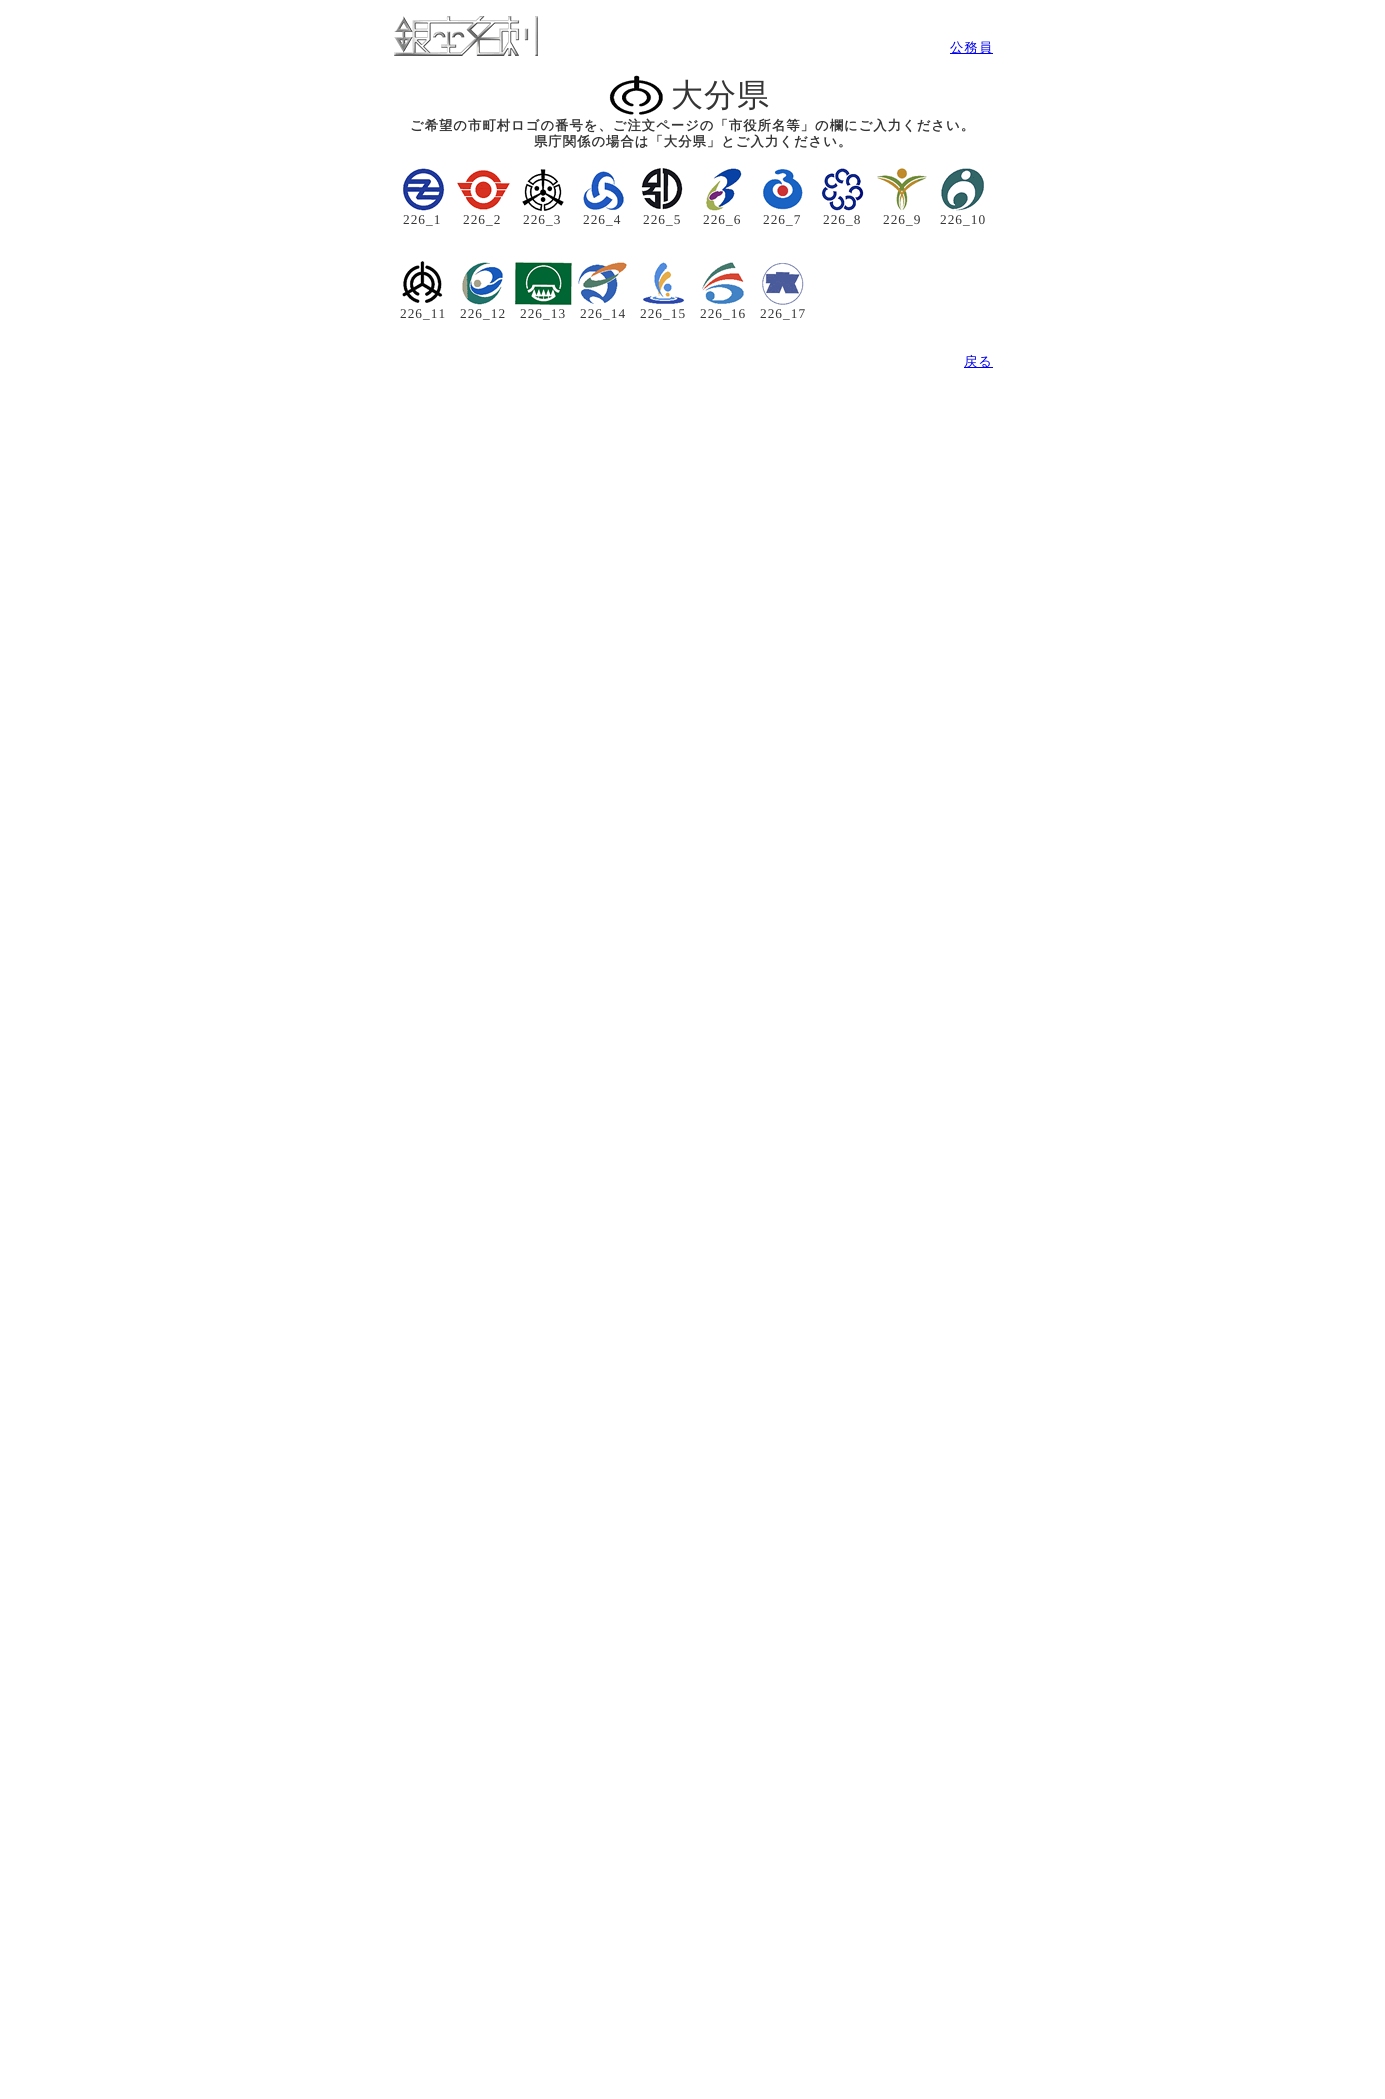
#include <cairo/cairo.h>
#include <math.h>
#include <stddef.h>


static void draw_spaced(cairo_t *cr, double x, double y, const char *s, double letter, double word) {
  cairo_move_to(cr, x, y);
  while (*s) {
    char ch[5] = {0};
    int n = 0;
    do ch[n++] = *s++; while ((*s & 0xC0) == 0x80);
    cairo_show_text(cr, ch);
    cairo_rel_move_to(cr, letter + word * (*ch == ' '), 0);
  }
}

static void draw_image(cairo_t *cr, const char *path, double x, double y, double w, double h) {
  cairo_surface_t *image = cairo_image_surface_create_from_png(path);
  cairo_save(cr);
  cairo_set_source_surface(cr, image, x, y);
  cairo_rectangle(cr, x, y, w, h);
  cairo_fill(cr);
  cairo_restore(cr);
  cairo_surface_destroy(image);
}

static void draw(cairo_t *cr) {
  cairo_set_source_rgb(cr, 1, 1, 1);
  cairo_paint(cr);
  draw_image(cr, "images/1.png", 394, 16, 144, 40);
  cairo_set_source_rgb(cr, 0, 0, 238 / 255.0);
  cairo_rectangle(cr, 950, 53, 43, 1);
  cairo_fill(cr);
  draw_image(cr, "images/2.png", 609, 75, 54, 40);
  draw_image(cr, "images/3.png", 403, 168, 42, 43);
  draw_image(cr, "images/4.png", 457, 170, 53, 40);
  draw_image(cr, "images/5.png", 522, 169, 42, 43);
  draw_image(cr, "images/6.png", 583, 171, 42, 39);
  draw_image(cr, "images/7.png", 641, 168, 42, 42);
  draw_image(cr, "images/8.png", 706, 168, 36, 43);
  draw_image(cr, "images/9.png", 763, 169, 40, 41);
  draw_image(cr, "images/10.png", 821, 168, 43, 43);
  draw_image(cr, "images/11.png", 877, 168, 50, 43);
  draw_image(cr, "images/12.png", 941, 168, 43, 43);
  draw_image(cr, "images/13.png", 402, 261, 41, 42);
  draw_image(cr, "images/14.png", 462, 262, 41, 43);
  draw_image(cr, "images/15.png", 515, 262, 57, 43);
  draw_image(cr, "images/16.png", 578, 262, 49, 42);
  draw_image(cr, "images/17.png", 643, 262, 42, 42);
  draw_image(cr, "images/18.png", 702, 262, 42, 42);
  draw_image(cr, "images/19.png", 762, 262, 42, 43);
  cairo_rectangle(cr, 964, 367, 29, 1);
  cairo_fill(cr);
  cairo_select_font_face(cr, "WenQuanYi Zen Hei Medium", CAIRO_FONT_SLANT_NORMAL, CAIRO_FONT_WEIGHT_NORMAL);
  cairo_set_font_size(cr, 13.35);
  draw_spaced(cr, 950, 52, "公務員", 1, 0);
  cairo_set_font_size(cr, 32);
  cairo_set_source_rgb(cr, 53 / 255.0, 53 / 255.0, 53 / 255.0);
  draw_spaced(cr, 671, 106, "大分県", 1, 0);
  cairo_select_font_face(cr, "WenQuanYi Zen Hei", CAIRO_FONT_SLANT_NORMAL, CAIRO_FONT_WEIGHT_BOLD);
  cairo_set_font_size(cr, 13.35);
  draw_spaced(cr, 410, 130, "ご希望の市町村ロゴの番号を、ご注文ページの「市役所名等」の欄にご入力ください。", 1, 0);
  draw_spaced(cr, 534, 146, "県庁関係の場合は「大分県」とご入力ください。", 1, 0);
  cairo_select_font_face(cr, "Liberation Serif", CAIRO_FONT_SLANT_NORMAL, CAIRO_FONT_WEIGHT_NORMAL);
  draw_spaced(cr, 403, 224, "226_1", 1, 0);
  draw_spaced(cr, 463, 224, "226_2", 1, 0);
  draw_spaced(cr, 523, 224, "226_3", 1, 0);
  draw_spaced(cr, 583, 224, "226_4", 1, 0);
  draw_spaced(cr, 643, 224, "226_5", 1, 0);
  draw_spaced(cr, 703, 224, "226_6", 1, 0);
  draw_spaced(cr, 763, 224, "226_7", 1, 0);
  draw_spaced(cr, 823, 224, "226_8", 1, 0);
  draw_spaced(cr, 883, 224, "226_9", 1, 0);
  draw_spaced(cr, 940, 224, "226_10", 1, 0);
  draw_spaced(cr, 400, 318, "226_11", 1, 0);
  draw_spaced(cr, 460, 318, "226_12", 1, 0);
  draw_spaced(cr, 520, 318, "226_13", 1, 0);
  draw_spaced(cr, 580, 318, "226_14", 1, 0);
  draw_spaced(cr, 640, 318, "226_15", 1, 0);
  draw_spaced(cr, 700, 318, "226_16", 1, 0);
  draw_spaced(cr, 760, 318, "226_17", 1, 0);
  cairo_select_font_face(cr, "WenQuanYi Zen Hei Medium", CAIRO_FONT_SLANT_NORMAL, CAIRO_FONT_WEIGHT_NORMAL);
  cairo_set_source_rgb(cr, 0, 0, 238 / 255.0);
  draw_spaced(cr, 964, 366, "戻る", 1, 0);
}

int main(void) {
  cairo_surface_t *surface = cairo_image_surface_create(CAIRO_FORMAT_RGB24, 1385, 2099);
  cairo_t *cr = cairo_create(surface);
  cairo_font_options_t *options = cairo_font_options_create();
  cairo_font_options_set_hint_metrics(options, CAIRO_HINT_METRICS_OFF);
  cairo_font_options_set_hint_style(options, CAIRO_HINT_STYLE_NONE);
  cairo_set_font_options(cr, options);
  cairo_set_miter_limit(cr, 4);
  draw(cr);
  cairo_surface_write_to_png(surface, "out.png");
  cairo_font_options_destroy(options);
  cairo_destroy(cr);
  cairo_surface_destroy(surface);
  return 0;
}
